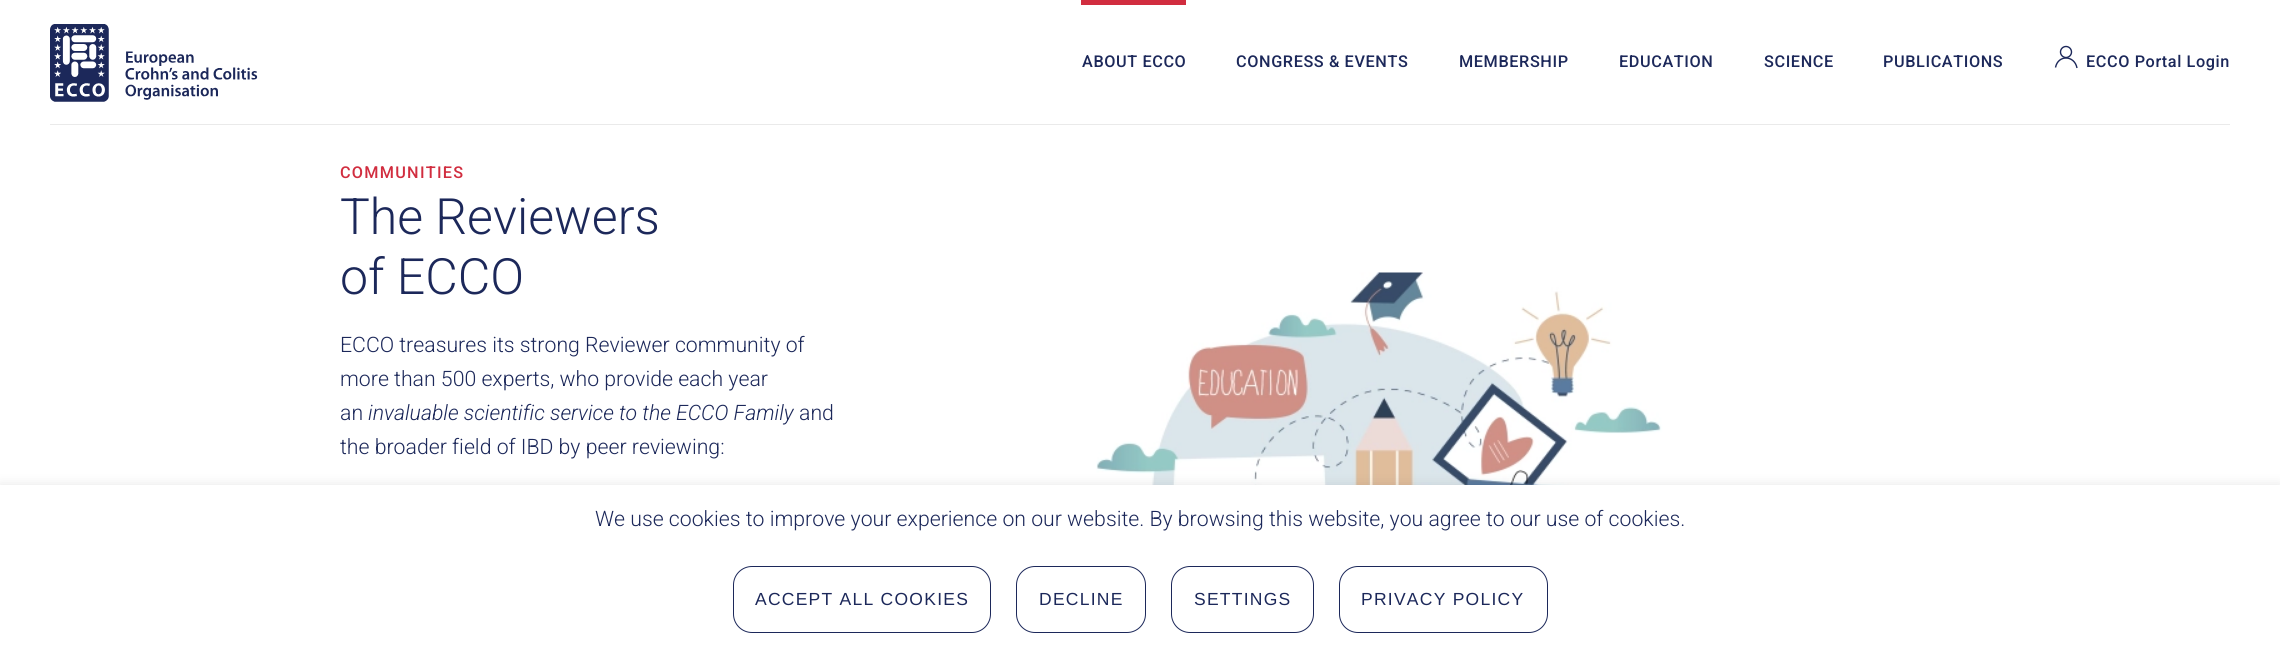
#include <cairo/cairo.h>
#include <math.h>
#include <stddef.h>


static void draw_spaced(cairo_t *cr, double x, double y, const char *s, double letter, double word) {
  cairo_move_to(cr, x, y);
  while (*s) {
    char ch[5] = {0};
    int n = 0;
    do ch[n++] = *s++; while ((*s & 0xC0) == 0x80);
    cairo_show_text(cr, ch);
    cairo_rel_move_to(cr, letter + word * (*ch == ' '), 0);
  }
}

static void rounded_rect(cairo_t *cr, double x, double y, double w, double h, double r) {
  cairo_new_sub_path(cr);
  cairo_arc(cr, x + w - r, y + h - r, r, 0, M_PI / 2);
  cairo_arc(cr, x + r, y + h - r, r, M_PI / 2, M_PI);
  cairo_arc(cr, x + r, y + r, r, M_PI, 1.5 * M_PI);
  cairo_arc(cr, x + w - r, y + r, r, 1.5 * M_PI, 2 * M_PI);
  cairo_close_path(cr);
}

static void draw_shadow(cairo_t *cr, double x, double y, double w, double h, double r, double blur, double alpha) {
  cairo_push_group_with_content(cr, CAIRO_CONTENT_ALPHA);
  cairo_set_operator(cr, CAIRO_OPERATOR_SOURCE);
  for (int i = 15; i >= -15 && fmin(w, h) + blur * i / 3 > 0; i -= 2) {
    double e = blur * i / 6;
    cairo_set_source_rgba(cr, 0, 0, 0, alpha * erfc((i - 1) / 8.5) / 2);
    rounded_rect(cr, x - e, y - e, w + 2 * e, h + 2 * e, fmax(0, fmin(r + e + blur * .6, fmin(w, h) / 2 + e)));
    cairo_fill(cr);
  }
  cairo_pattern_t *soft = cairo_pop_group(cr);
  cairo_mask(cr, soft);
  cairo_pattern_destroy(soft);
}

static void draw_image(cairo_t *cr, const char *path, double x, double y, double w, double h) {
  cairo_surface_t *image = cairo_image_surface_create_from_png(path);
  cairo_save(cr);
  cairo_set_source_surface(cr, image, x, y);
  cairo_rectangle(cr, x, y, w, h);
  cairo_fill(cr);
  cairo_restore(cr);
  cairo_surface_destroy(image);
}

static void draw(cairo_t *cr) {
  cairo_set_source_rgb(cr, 1, 1, 1);
  cairo_paint(cr);
  draw_image(cr, "images/1.png", 50, 24, 208, 78);
  cairo_set_source_rgb(cr, 209 / 255.0, 45 / 255.0, 63 / 255.0);
  cairo_rectangle(cr, 1081, 0, 105, 5);
  cairo_fill(cr);
  cairo_arc(cr, 2066, 52, 5.5, 0, 2 * M_PI);
  cairo_set_source_rgb(cr, 28 / 255.0, 40 / 255.0, 90 / 255.0);
  cairo_set_line_width(cr, 1.4);
  cairo_stroke(cr);
  cairo_new_path(cr);
  cairo_move_to(cr, 2055.5, 67.5);
  cairo_curve_to(cr, 2058, 54.5, 2074.5, 55, 2077, 68);
  cairo_stroke(cr);
  cairo_set_source_rgb(cr, 234 / 255.0, 234 / 255.0, 234 / 255.0);
  cairo_rectangle(cr, 50, 124, 2180, 1);
  cairo_fill(cr);
  draw_image(cr, "images/2.png", 1096, 272, 633, 213);
  cairo_set_source_rgb(cr, 0, 0, 0);
  draw_shadow(cr, 0, 485, 2280, 160, 0, 6, 0.1);
  cairo_set_source_rgb(cr, 1, 1, 1);
  cairo_rectangle(cr, 0, 485, 2280, 160);
  cairo_fill(cr);
  rounded_rect(cr, 733.5, 566.5, 257, 66, 18.5);
  cairo_set_source_rgb(cr, 28 / 255.0, 40 / 255.0, 90 / 255.0);
  cairo_set_line_width(cr, 1);
  cairo_stroke(cr);
  rounded_rect(cr, 1016.5, 566.5, 129, 66, 18.5);
  cairo_stroke(cr);
  rounded_rect(cr, 1171.5, 566.5, 142, 66, 18.5);
  cairo_stroke(cr);
  rounded_rect(cr, 1339.5, 566.5, 208, 66, 18.5);
  cairo_stroke(cr);
  cairo_select_font_face(cr, "Roboto Medium", CAIRO_FONT_SLANT_NORMAL, CAIRO_FONT_WEIGHT_NORMAL);
  cairo_set_font_size(cr, 16.25);
  draw_spaced(cr, 1082, 67, "ABOUT ECCO", 0.6, 0);
  draw_spaced(cr, 1236, 67, "CONGRESS & EVENTS", 0.6, 0);
  draw_spaced(cr, 1459, 67, "MEMBERSHIP", 0.6, 0);
  draw_spaced(cr, 1619, 67, "EDUCATION", 0.6, 0);
  draw_spaced(cr, 1764, 67, "SCIENCE", 0.6, 0);
  draw_spaced(cr, 1883, 67, "PUBLICATIONS", 0.6, 0);
  draw_spaced(cr, 2086, 67, "ECCO Portal Login", 0.6, 0);
  cairo_set_source_rgb(cr, 209 / 255.0, 45 / 255.0, 63 / 255.0);
  draw_spaced(cr, 340, 178, "COMMUNITIES", 1.25, 0);
  cairo_select_font_face(cr, "Roboto Light", CAIRO_FONT_SLANT_NORMAL, CAIRO_FONT_WEIGHT_NORMAL);
  cairo_set_font_size(cr, 50);
  cairo_set_source_rgb(cr, 28 / 255.0, 40 / 255.0, 90 / 255.0);
  cairo_move_to(cr, 340, 234);
  cairo_show_text(cr, "The Reviewers");
  cairo_move_to(cr, 340, 294);
  cairo_show_text(cr, "of ECCO");
  cairo_set_font_size(cr, 21.25);
  cairo_move_to(cr, 340, 352);
  cairo_show_text(cr, "ECCO treasures its strong Reviewer community of");
  cairo_move_to(cr, 340, 386);
  cairo_show_text(cr, "more than 500 experts, who provide each year");
  cairo_move_to(cr, 340, 420);
  cairo_show_text(cr, "an");
  cairo_select_font_face(cr, "Roboto Light", CAIRO_FONT_SLANT_ITALIC, CAIRO_FONT_WEIGHT_NORMAL);
  cairo_move_to(cr, 368, 420);
  cairo_show_text(cr, "invaluable scientific service to the ECCO Family");
  cairo_select_font_face(cr, "Roboto Light", CAIRO_FONT_SLANT_NORMAL, CAIRO_FONT_WEIGHT_NORMAL);
  cairo_move_to(cr, 799, 420);
  cairo_show_text(cr, "and");
  cairo_move_to(cr, 340, 454);
  cairo_show_text(cr, "the broader field of IBD by peer reviewing:");
  cairo_move_to(cr, 595, 526);
  cairo_show_text(cr, "We use cookies to improve your experience on our website. By browsing this website, you agree to our use of cookies.");
  cairo_select_font_face(cr, "Liberation Sans", CAIRO_FONT_SLANT_NORMAL, CAIRO_FONT_WEIGHT_NORMAL);
  cairo_set_font_size(cr, 17.5);
  draw_spaced(cr, 755, 605, "ACCEPT ALL COOKIES", 1.25, 0);
  draw_spaced(cr, 1039, 605, "DECLINE", 1.25, 0);
  draw_spaced(cr, 1194, 605, "SETTINGS", 1.25, 0);
  draw_spaced(cr, 1361, 605, "PRIVACY POLICY", 1.25, 0);
}

int main(void) {
  cairo_surface_t *surface = cairo_image_surface_create(CAIRO_FORMAT_RGB24, 2280, 645);
  cairo_t *cr = cairo_create(surface);
  cairo_font_options_t *options = cairo_font_options_create();
  cairo_font_options_set_hint_metrics(options, CAIRO_HINT_METRICS_OFF);
  cairo_font_options_set_hint_style(options, CAIRO_HINT_STYLE_NONE);
  cairo_set_font_options(cr, options);
  cairo_set_miter_limit(cr, 4);
  draw(cr);
  cairo_surface_write_to_png(surface, "out.png");
  cairo_font_options_destroy(options);
  cairo_destroy(cr);
  cairo_surface_destroy(surface);
  return 0;
}
